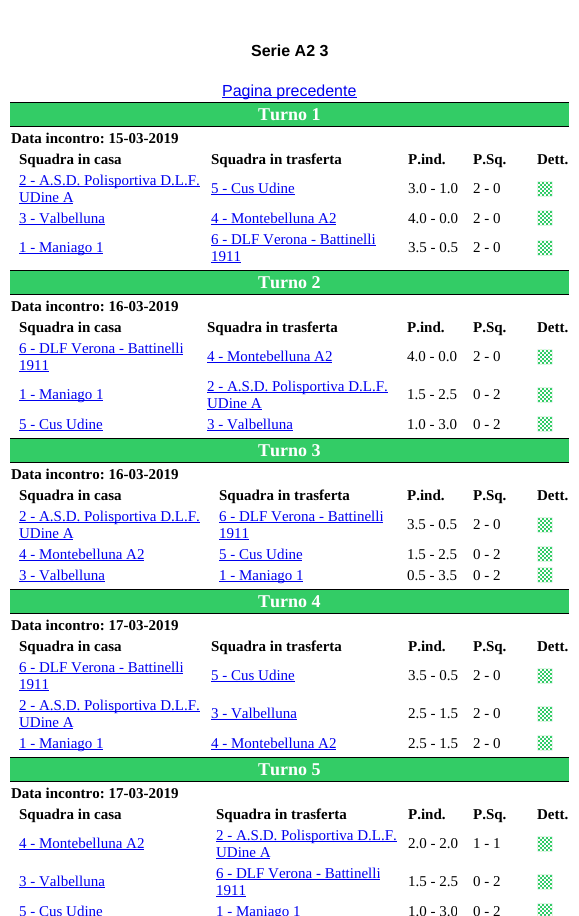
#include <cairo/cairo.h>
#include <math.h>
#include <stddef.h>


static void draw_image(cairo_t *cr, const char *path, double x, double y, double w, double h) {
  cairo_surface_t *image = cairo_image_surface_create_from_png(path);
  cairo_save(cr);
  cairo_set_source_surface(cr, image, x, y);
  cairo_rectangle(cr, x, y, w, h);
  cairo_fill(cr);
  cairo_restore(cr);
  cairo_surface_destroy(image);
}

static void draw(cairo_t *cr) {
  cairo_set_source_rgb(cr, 1, 1, 1);
  cairo_paint(cr);
  cairo_set_source_rgb(cr, 0, 0, 238 / 255.0);
  cairo_rectangle(cr, 222, 97, 135, 1);
  cairo_fill(cr);
  cairo_set_source_rgb(cr, 51 / 255.0, 204 / 255.0, 102 / 255.0);
  cairo_rectangle(cr, 10, 103, 559, 23);
  cairo_fill(cr);
  cairo_set_source_rgb(cr, 0, 0, 0);
  cairo_rectangle(cr, 10, 102, 559, 1);
  cairo_fill(cr);
  cairo_rectangle(cr, 10, 126, 559, 1);
  cairo_fill(cr);
  cairo_set_source_rgb(cr, 0, 0, 238 / 255.0);
  cairo_rectangle(cr, 19, 186, 181, 1);
  cairo_fill(cr);
  cairo_rectangle(cr, 19, 203, 54, 1);
  cairo_fill(cr);
  cairo_rectangle(cr, 211, 194, 84, 1);
  cairo_fill(cr);
  draw_image(cr, "images/1.png", 537, 181, 16, 16);
  cairo_rectangle(cr, 19, 224, 86, 1);
  cairo_fill(cr);
  cairo_rectangle(cr, 211, 224, 125, 1);
  cairo_fill(cr);
  draw_image(cr, "images/1.png", 537, 210, 16, 16);
  cairo_rectangle(cr, 19, 253, 84, 1);
  cairo_fill(cr);
  cairo_rectangle(cr, 211, 245, 165, 1);
  cairo_fill(cr);
  cairo_rectangle(cr, 211, 262, 30, 1);
  cairo_fill(cr);
  draw_image(cr, "images/1.png", 537, 240, 16, 16);
  cairo_set_source_rgb(cr, 51 / 255.0, 204 / 255.0, 102 / 255.0);
  cairo_rectangle(cr, 10, 271, 559, 23);
  cairo_fill(cr);
  cairo_set_source_rgb(cr, 0, 0, 0);
  cairo_rectangle(cr, 10, 270, 559, 1);
  cairo_fill(cr);
  cairo_rectangle(cr, 10, 294, 559, 1);
  cairo_fill(cr);
  cairo_set_source_rgb(cr, 0, 0, 238 / 255.0);
  cairo_rectangle(cr, 19, 354, 164, 1);
  cairo_fill(cr);
  cairo_rectangle(cr, 19, 371, 30, 1);
  cairo_fill(cr);
  cairo_rectangle(cr, 207, 362, 125, 1);
  cairo_fill(cr);
  draw_image(cr, "images/1.png", 537, 349, 16, 16);
  cairo_rectangle(cr, 19, 400, 84, 1);
  cairo_fill(cr);
  cairo_rectangle(cr, 207, 392, 181, 1);
  cairo_fill(cr);
  cairo_rectangle(cr, 207, 409, 55, 1);
  cairo_fill(cr);
  draw_image(cr, "images/1.png", 537, 387, 16, 16);
  cairo_rectangle(cr, 19, 430, 84, 1);
  cairo_fill(cr);
  cairo_rectangle(cr, 207, 430, 86, 1);
  cairo_fill(cr);
  draw_image(cr, "images/1.png", 537, 416, 16, 16);
  cairo_set_source_rgb(cr, 51 / 255.0, 204 / 255.0, 102 / 255.0);
  cairo_rectangle(cr, 10, 439, 559, 23);
  cairo_fill(cr);
  cairo_set_source_rgb(cr, 0, 0, 0);
  cairo_rectangle(cr, 10, 438, 559, 1);
  cairo_fill(cr);
  cairo_rectangle(cr, 10, 462, 559, 1);
  cairo_fill(cr);
  cairo_set_source_rgb(cr, 0, 0, 238 / 255.0);
  cairo_rectangle(cr, 19, 522, 181, 1);
  cairo_fill(cr);
  cairo_rectangle(cr, 19, 539, 54, 1);
  cairo_fill(cr);
  cairo_rectangle(cr, 219, 522, 164, 1);
  cairo_fill(cr);
  cairo_rectangle(cr, 219, 539, 30, 1);
  cairo_fill(cr);
  draw_image(cr, "images/1.png", 537, 517, 16, 16);
  cairo_rectangle(cr, 19, 560, 125, 1);
  cairo_fill(cr);
  cairo_rectangle(cr, 219, 560, 83, 1);
  cairo_fill(cr);
  draw_image(cr, "images/1.png", 537, 546, 16, 16);
  cairo_rectangle(cr, 19, 581, 86, 1);
  cairo_fill(cr);
  cairo_rectangle(cr, 219, 581, 84, 1);
  cairo_fill(cr);
  draw_image(cr, "images/1.png", 537, 567, 16, 16);
  cairo_set_source_rgb(cr, 51 / 255.0, 204 / 255.0, 102 / 255.0);
  cairo_rectangle(cr, 10, 590, 559, 23);
  cairo_fill(cr);
  cairo_set_source_rgb(cr, 0, 0, 0);
  cairo_rectangle(cr, 10, 589, 559, 1);
  cairo_fill(cr);
  cairo_rectangle(cr, 10, 613, 559, 1);
  cairo_fill(cr);
  cairo_set_source_rgb(cr, 0, 0, 238 / 255.0);
  cairo_rectangle(cr, 19, 673, 164, 1);
  cairo_fill(cr);
  cairo_rectangle(cr, 19, 690, 30, 1);
  cairo_fill(cr);
  cairo_rectangle(cr, 211, 681, 84, 1);
  cairo_fill(cr);
  draw_image(cr, "images/1.png", 537, 668, 16, 16);
  cairo_rectangle(cr, 19, 711, 181, 1);
  cairo_fill(cr);
  cairo_rectangle(cr, 19, 728, 54, 1);
  cairo_fill(cr);
  cairo_rectangle(cr, 211, 719, 86, 1);
  cairo_fill(cr);
  draw_image(cr, "images/1.png", 537, 706, 16, 16);
  cairo_rectangle(cr, 19, 749, 84, 1);
  cairo_fill(cr);
  cairo_rectangle(cr, 211, 749, 125, 1);
  cairo_fill(cr);
  draw_image(cr, "images/1.png", 537, 735, 16, 16);
  cairo_set_source_rgb(cr, 51 / 255.0, 204 / 255.0, 102 / 255.0);
  cairo_rectangle(cr, 10, 758, 559, 23);
  cairo_fill(cr);
  cairo_set_source_rgb(cr, 0, 0, 0);
  cairo_rectangle(cr, 10, 757, 559, 1);
  cairo_fill(cr);
  cairo_rectangle(cr, 10, 781, 559, 1);
  cairo_fill(cr);
  cairo_set_source_rgb(cr, 0, 0, 238 / 255.0);
  cairo_rectangle(cr, 19, 849, 125, 1);
  cairo_fill(cr);
  cairo_rectangle(cr, 216, 841, 181, 1);
  cairo_fill(cr);
  cairo_rectangle(cr, 216, 858, 54, 1);
  cairo_fill(cr);
  draw_image(cr, "images/1.png", 537, 836, 16, 16);
  cairo_rectangle(cr, 19, 887, 86, 1);
  cairo_fill(cr);
  cairo_rectangle(cr, 216, 879, 164, 1);
  cairo_fill(cr);
  cairo_rectangle(cr, 216, 896, 30, 1);
  cairo_fill(cr);
  draw_image(cr, "images/1.png", 537, 874, 16, 16);
  draw_image(cr, "images/2.png", 537, 903, 16, 13);
  cairo_select_font_face(cr, "Liberation Sans", CAIRO_FONT_SLANT_NORMAL, CAIRO_FONT_WEIGHT_BOLD);
  cairo_set_font_size(cr, 16);
  cairo_set_source_rgb(cr, 0, 0, 0);
  cairo_move_to(cr, 251, 56);
  cairo_show_text(cr, "Serie A2 3");
  cairo_select_font_face(cr, "Liberation Sans", CAIRO_FONT_SLANT_NORMAL, CAIRO_FONT_WEIGHT_NORMAL);
  cairo_set_source_rgb(cr, 0, 0, 238 / 255.0);
  cairo_move_to(cr, 222, 96);
  cairo_show_text(cr, "Pagina precedente");
  cairo_select_font_face(cr, "Liberation Serif", CAIRO_FONT_SLANT_NORMAL, CAIRO_FONT_WEIGHT_BOLD);
  cairo_set_font_size(cr, 18);
  cairo_set_source_rgb(cr, 1, 1, 1);
  cairo_move_to(cr, 258, 120);
  cairo_show_text(cr, "Turno 1");
  cairo_set_font_size(cr, 15);
  cairo_set_source_rgb(cr, 0, 0, 0);
  cairo_move_to(cr, 11, 143);
  cairo_show_text(cr, "Data incontro: 15-03-2019");
  cairo_move_to(cr, 19, 164);
  cairo_show_text(cr, "Squadra in casa");
  cairo_move_to(cr, 211, 164);
  cairo_show_text(cr, "Squadra in trasferta");
  cairo_move_to(cr, 408, 164);
  cairo_show_text(cr, "P.ind.");
  cairo_move_to(cr, 473, 164);
  cairo_show_text(cr, "P.Sq.");
  cairo_move_to(cr, 537, 164);
  cairo_show_text(cr, "Dett.");
  cairo_select_font_face(cr, "Liberation Serif", CAIRO_FONT_SLANT_NORMAL, CAIRO_FONT_WEIGHT_NORMAL);
  cairo_set_source_rgb(cr, 0, 0, 238 / 255.0);
  cairo_move_to(cr, 19, 185);
  cairo_show_text(cr, "2 - A.S.D. Polisportiva D.L.F.");
  cairo_move_to(cr, 19, 202);
  cairo_show_text(cr, "UDine A");
  cairo_move_to(cr, 211, 193);
  cairo_show_text(cr, "5 - Cus Udine");
  cairo_set_source_rgb(cr, 0, 0, 0);
  cairo_move_to(cr, 408, 193);
  cairo_show_text(cr, "3.0 - 1.0");
  cairo_move_to(cr, 473, 193);
  cairo_show_text(cr, "2 - 0");
  cairo_set_source_rgb(cr, 0, 0, 238 / 255.0);
  cairo_move_to(cr, 19, 223);
  cairo_show_text(cr, "3 - Valbelluna");
  cairo_move_to(cr, 211, 223);
  cairo_show_text(cr, "4 - Montebelluna A2");
  cairo_set_source_rgb(cr, 0, 0, 0);
  cairo_move_to(cr, 408, 223);
  cairo_show_text(cr, "4.0 - 0.0");
  cairo_move_to(cr, 473, 223);
  cairo_show_text(cr, "2 - 0");
  cairo_set_source_rgb(cr, 0, 0, 238 / 255.0);
  cairo_move_to(cr, 19, 252);
  cairo_show_text(cr, "1 - Maniago 1");
  cairo_move_to(cr, 211, 244);
  cairo_show_text(cr, "6 - DLF Verona - Battinelli");
  cairo_move_to(cr, 211, 261);
  cairo_show_text(cr, "1911");
  cairo_set_source_rgb(cr, 0, 0, 0);
  cairo_move_to(cr, 408, 252);
  cairo_show_text(cr, "3.5 - 0.5");
  cairo_move_to(cr, 473, 252);
  cairo_show_text(cr, "2 - 0");
  cairo_select_font_face(cr, "Liberation Serif", CAIRO_FONT_SLANT_NORMAL, CAIRO_FONT_WEIGHT_BOLD);
  cairo_set_font_size(cr, 18);
  cairo_set_source_rgb(cr, 1, 1, 1);
  cairo_move_to(cr, 258, 288);
  cairo_show_text(cr, "Turno 2");
  cairo_set_font_size(cr, 15);
  cairo_set_source_rgb(cr, 0, 0, 0);
  cairo_move_to(cr, 11, 311);
  cairo_show_text(cr, "Data incontro: 16-03-2019");
  cairo_move_to(cr, 19, 332);
  cairo_show_text(cr, "Squadra in casa");
  cairo_move_to(cr, 207, 332);
  cairo_show_text(cr, "Squadra in trasferta");
  cairo_move_to(cr, 407, 332);
  cairo_show_text(cr, "P.ind.");
  cairo_move_to(cr, 473, 332);
  cairo_show_text(cr, "P.Sq.");
  cairo_move_to(cr, 537, 332);
  cairo_show_text(cr, "Dett.");
  cairo_select_font_face(cr, "Liberation Serif", CAIRO_FONT_SLANT_NORMAL, CAIRO_FONT_WEIGHT_NORMAL);
  cairo_set_source_rgb(cr, 0, 0, 238 / 255.0);
  cairo_move_to(cr, 19, 353);
  cairo_show_text(cr, "6 - DLF Verona - Battinelli");
  cairo_move_to(cr, 19, 370);
  cairo_show_text(cr, "1911");
  cairo_move_to(cr, 207, 361);
  cairo_show_text(cr, "4 - Montebelluna A2");
  cairo_set_source_rgb(cr, 0, 0, 0);
  cairo_move_to(cr, 407, 361);
  cairo_show_text(cr, "4.0 - 0.0");
  cairo_move_to(cr, 473, 361);
  cairo_show_text(cr, "2 - 0");
  cairo_set_source_rgb(cr, 0, 0, 238 / 255.0);
  cairo_move_to(cr, 19, 399);
  cairo_show_text(cr, "1 - Maniago 1");
  cairo_move_to(cr, 207, 391);
  cairo_show_text(cr, "2 - A.S.D. Polisportiva D.L.F.");
  cairo_move_to(cr, 207, 408);
  cairo_show_text(cr, "UDine A");
  cairo_set_source_rgb(cr, 0, 0, 0);
  cairo_move_to(cr, 407, 399);
  cairo_show_text(cr, "1.5 - 2.5");
  cairo_move_to(cr, 473, 399);
  cairo_show_text(cr, "0 - 2");
  cairo_set_source_rgb(cr, 0, 0, 238 / 255.0);
  cairo_move_to(cr, 19, 429);
  cairo_show_text(cr, "5 - Cus Udine");
  cairo_move_to(cr, 207, 429);
  cairo_show_text(cr, "3 - Valbelluna");
  cairo_set_source_rgb(cr, 0, 0, 0);
  cairo_move_to(cr, 407, 429);
  cairo_show_text(cr, "1.0 - 3.0");
  cairo_move_to(cr, 473, 429);
  cairo_show_text(cr, "0 - 2");
  cairo_select_font_face(cr, "Liberation Serif", CAIRO_FONT_SLANT_NORMAL, CAIRO_FONT_WEIGHT_BOLD);
  cairo_set_font_size(cr, 18);
  cairo_set_source_rgb(cr, 1, 1, 1);
  cairo_move_to(cr, 258, 456);
  cairo_show_text(cr, "Turno 3");
  cairo_set_font_size(cr, 15);
  cairo_set_source_rgb(cr, 0, 0, 0);
  cairo_move_to(cr, 11, 479);
  cairo_show_text(cr, "Data incontro: 16-03-2019");
  cairo_move_to(cr, 19, 500);
  cairo_show_text(cr, "Squadra in casa");
  cairo_move_to(cr, 219, 500);
  cairo_show_text(cr, "Squadra in trasferta");
  cairo_move_to(cr, 407, 500);
  cairo_show_text(cr, "P.ind.");
  cairo_move_to(cr, 473, 500);
  cairo_show_text(cr, "P.Sq.");
  cairo_move_to(cr, 537, 500);
  cairo_show_text(cr, "Dett.");
  cairo_select_font_face(cr, "Liberation Serif", CAIRO_FONT_SLANT_NORMAL, CAIRO_FONT_WEIGHT_NORMAL);
  cairo_set_source_rgb(cr, 0, 0, 238 / 255.0);
  cairo_move_to(cr, 19, 521);
  cairo_show_text(cr, "2 - A.S.D. Polisportiva D.L.F.");
  cairo_move_to(cr, 19, 538);
  cairo_show_text(cr, "UDine A");
  cairo_move_to(cr, 219, 521);
  cairo_show_text(cr, "6 - DLF Verona - Battinelli");
  cairo_move_to(cr, 219, 538);
  cairo_show_text(cr, "1911");
  cairo_set_source_rgb(cr, 0, 0, 0);
  cairo_move_to(cr, 407, 529);
  cairo_show_text(cr, "3.5 - 0.5");
  cairo_move_to(cr, 473, 529);
  cairo_show_text(cr, "2 - 0");
  cairo_set_source_rgb(cr, 0, 0, 238 / 255.0);
  cairo_move_to(cr, 19, 559);
  cairo_show_text(cr, "4 - Montebelluna A2");
  cairo_move_to(cr, 219, 559);
  cairo_show_text(cr, "5 - Cus Udine");
  cairo_set_source_rgb(cr, 0, 0, 0);
  cairo_move_to(cr, 407, 559);
  cairo_show_text(cr, "1.5 - 2.5");
  cairo_move_to(cr, 473, 559);
  cairo_show_text(cr, "0 - 2");
  cairo_set_source_rgb(cr, 0, 0, 238 / 255.0);
  cairo_move_to(cr, 19, 580);
  cairo_show_text(cr, "3 - Valbelluna");
  cairo_move_to(cr, 219, 580);
  cairo_show_text(cr, "1 - Maniago 1");
  cairo_set_source_rgb(cr, 0, 0, 0);
  cairo_move_to(cr, 407, 580);
  cairo_show_text(cr, "0.5 - 3.5");
  cairo_move_to(cr, 473, 580);
  cairo_show_text(cr, "0 - 2");
  cairo_select_font_face(cr, "Liberation Serif", CAIRO_FONT_SLANT_NORMAL, CAIRO_FONT_WEIGHT_BOLD);
  cairo_set_font_size(cr, 18);
  cairo_set_source_rgb(cr, 1, 1, 1);
  cairo_move_to(cr, 258, 607);
  cairo_show_text(cr, "Turno 4");
  cairo_set_font_size(cr, 15);
  cairo_set_source_rgb(cr, 0, 0, 0);
  cairo_move_to(cr, 11, 630);
  cairo_show_text(cr, "Data incontro: 17-03-2019");
  cairo_move_to(cr, 19, 651);
  cairo_show_text(cr, "Squadra in casa");
  cairo_move_to(cr, 211, 651);
  cairo_show_text(cr, "Squadra in trasferta");
  cairo_move_to(cr, 408, 651);
  cairo_show_text(cr, "P.ind.");
  cairo_move_to(cr, 473, 651);
  cairo_show_text(cr, "P.Sq.");
  cairo_move_to(cr, 537, 651);
  cairo_show_text(cr, "Dett.");
  cairo_select_font_face(cr, "Liberation Serif", CAIRO_FONT_SLANT_NORMAL, CAIRO_FONT_WEIGHT_NORMAL);
  cairo_set_source_rgb(cr, 0, 0, 238 / 255.0);
  cairo_move_to(cr, 19, 672);
  cairo_show_text(cr, "6 - DLF Verona - Battinelli");
  cairo_move_to(cr, 19, 689);
  cairo_show_text(cr, "1911");
  cairo_move_to(cr, 211, 680);
  cairo_show_text(cr, "5 - Cus Udine");
  cairo_set_source_rgb(cr, 0, 0, 0);
  cairo_move_to(cr, 408, 680);
  cairo_show_text(cr, "3.5 - 0.5");
  cairo_move_to(cr, 473, 680);
  cairo_show_text(cr, "2 - 0");
  cairo_set_source_rgb(cr, 0, 0, 238 / 255.0);
  cairo_move_to(cr, 19, 710);
  cairo_show_text(cr, "2 - A.S.D. Polisportiva D.L.F.");
  cairo_move_to(cr, 19, 727);
  cairo_show_text(cr, "UDine A");
  cairo_move_to(cr, 211, 718);
  cairo_show_text(cr, "3 - Valbelluna");
  cairo_set_source_rgb(cr, 0, 0, 0);
  cairo_move_to(cr, 408, 718);
  cairo_show_text(cr, "2.5 - 1.5");
  cairo_move_to(cr, 473, 718);
  cairo_show_text(cr, "2 - 0");
  cairo_set_source_rgb(cr, 0, 0, 238 / 255.0);
  cairo_move_to(cr, 19, 748);
  cairo_show_text(cr, "1 - Maniago 1");
  cairo_move_to(cr, 211, 748);
  cairo_show_text(cr, "4 - Montebelluna A2");
  cairo_set_source_rgb(cr, 0, 0, 0);
  cairo_move_to(cr, 408, 748);
  cairo_show_text(cr, "2.5 - 1.5");
  cairo_move_to(cr, 473, 748);
  cairo_show_text(cr, "2 - 0");
  cairo_select_font_face(cr, "Liberation Serif", CAIRO_FONT_SLANT_NORMAL, CAIRO_FONT_WEIGHT_BOLD);
  cairo_set_font_size(cr, 18);
  cairo_set_source_rgb(cr, 1, 1, 1);
  cairo_move_to(cr, 258, 775);
  cairo_show_text(cr, "Turno 5");
  cairo_set_font_size(cr, 15);
  cairo_set_source_rgb(cr, 0, 0, 0);
  cairo_move_to(cr, 11, 798);
  cairo_show_text(cr, "Data incontro: 17-03-2019");
  cairo_move_to(cr, 19, 819);
  cairo_show_text(cr, "Squadra in casa");
  cairo_move_to(cr, 216, 819);
  cairo_show_text(cr, "Squadra in trasferta");
  cairo_move_to(cr, 408, 819);
  cairo_show_text(cr, "P.ind.");
  cairo_move_to(cr, 473, 819);
  cairo_show_text(cr, "P.Sq.");
  cairo_move_to(cr, 537, 819);
  cairo_show_text(cr, "Dett.");
  cairo_select_font_face(cr, "Liberation Serif", CAIRO_FONT_SLANT_NORMAL, CAIRO_FONT_WEIGHT_NORMAL);
  cairo_set_source_rgb(cr, 0, 0, 238 / 255.0);
  cairo_move_to(cr, 19, 848);
  cairo_show_text(cr, "4 - Montebelluna A2");
  cairo_move_to(cr, 216, 840);
  cairo_show_text(cr, "2 - A.S.D. Polisportiva D.L.F.");
  cairo_move_to(cr, 216, 857);
  cairo_show_text(cr, "UDine A");
  cairo_set_source_rgb(cr, 0, 0, 0);
  cairo_move_to(cr, 408, 848);
  cairo_show_text(cr, "2.0 - 2.0");
  cairo_move_to(cr, 473, 848);
  cairo_show_text(cr, "1 - 1");
  cairo_set_source_rgb(cr, 0, 0, 238 / 255.0);
  cairo_move_to(cr, 19, 886);
  cairo_show_text(cr, "3 - Valbelluna");
  cairo_move_to(cr, 216, 878);
  cairo_show_text(cr, "6 - DLF Verona - Battinelli");
  cairo_move_to(cr, 216, 895);
  cairo_show_text(cr, "1911");
  cairo_set_source_rgb(cr, 0, 0, 0);
  cairo_move_to(cr, 408, 886);
  cairo_show_text(cr, "1.5 - 2.5");
  cairo_move_to(cr, 473, 886);
  cairo_show_text(cr, "0 - 2");
  cairo_set_source_rgb(cr, 0, 0, 238 / 255.0);
  cairo_move_to(cr, 19, 916);
  cairo_show_text(cr, "5 - Cus Udine");
  cairo_move_to(cr, 216, 916);
  cairo_show_text(cr, "1 - Maniago 1");
  cairo_set_source_rgb(cr, 0, 0, 0);
  cairo_move_to(cr, 408, 916);
  cairo_show_text(cr, "1.0 - 3.0");
  cairo_move_to(cr, 473, 916);
  cairo_show_text(cr, "0 - 2");
}

int main(void) {
  cairo_surface_t *surface = cairo_image_surface_create(CAIRO_FORMAT_RGB24, 579, 916);
  cairo_t *cr = cairo_create(surface);
  cairo_font_options_t *options = cairo_font_options_create();
  cairo_font_options_set_hint_metrics(options, CAIRO_HINT_METRICS_OFF);
  cairo_font_options_set_hint_style(options, CAIRO_HINT_STYLE_NONE);
  cairo_set_font_options(cr, options);
  cairo_set_miter_limit(cr, 4);
  draw(cr);
  cairo_surface_write_to_png(surface, "out.png");
  cairo_font_options_destroy(options);
  cairo_destroy(cr);
  cairo_surface_destroy(surface);
  return 0;
}
